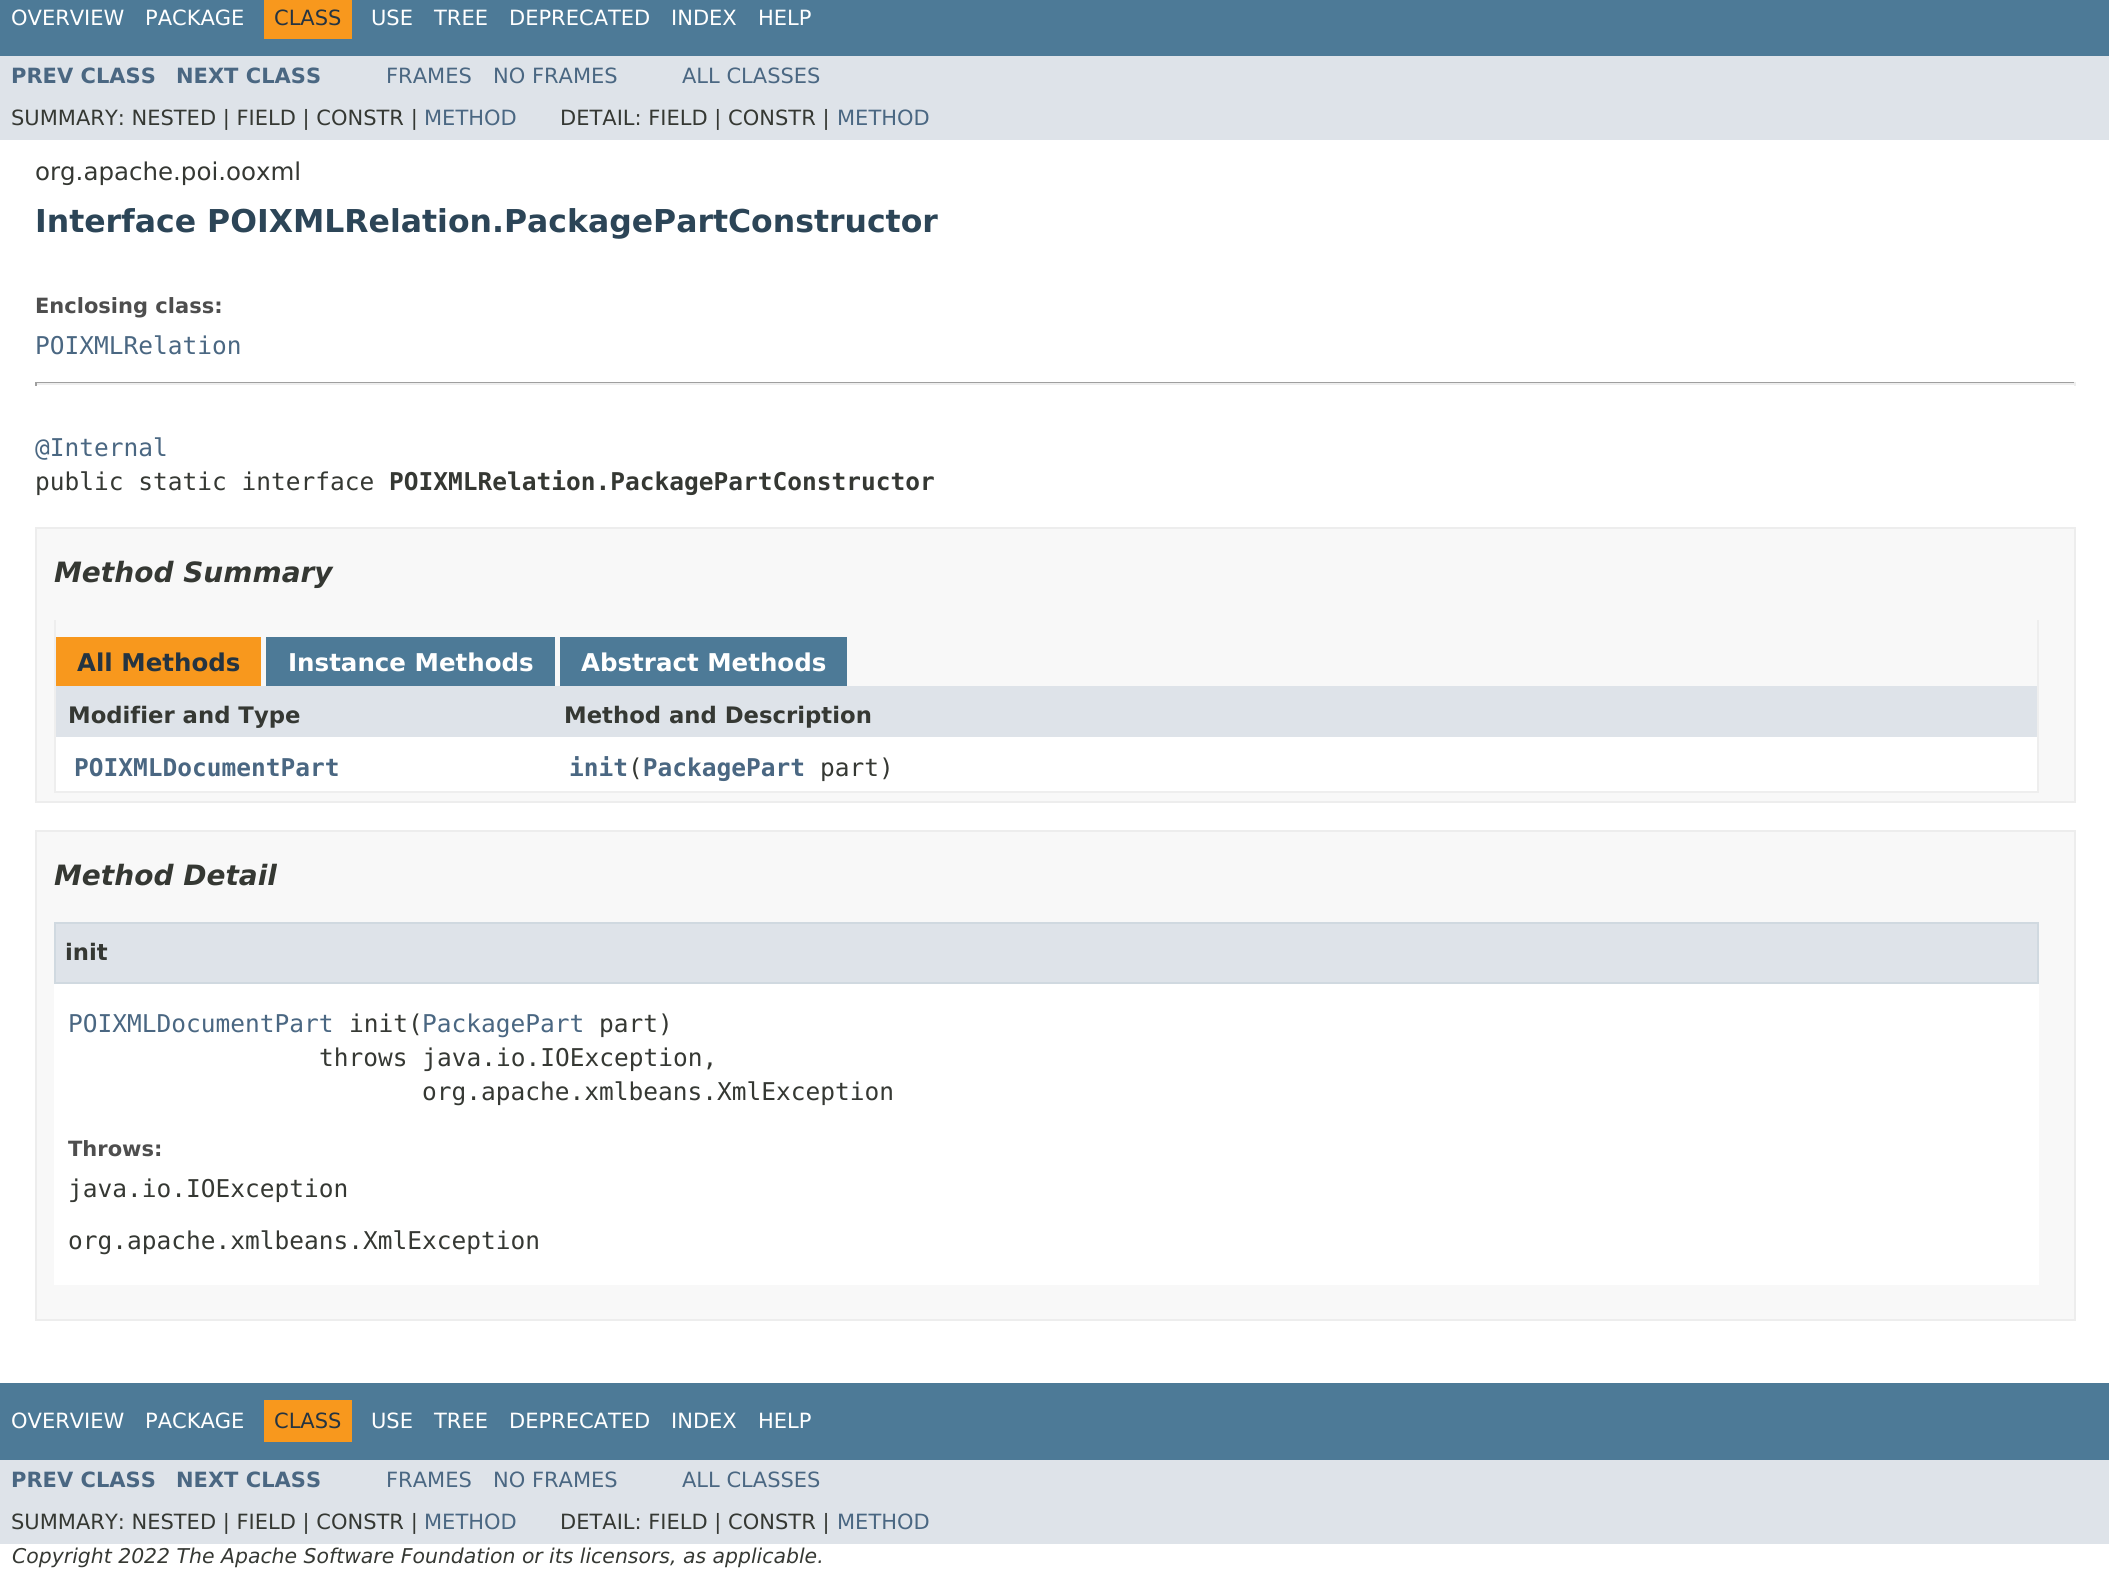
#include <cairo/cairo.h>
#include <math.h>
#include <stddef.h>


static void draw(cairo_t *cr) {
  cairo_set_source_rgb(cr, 1, 1, 1);
  cairo_paint(cr);
  cairo_set_source_rgb(cr, 77 / 255.0, 122 / 255.0, 151 / 255.0);
  cairo_rectangle(cr, 0, 0, 2109, 56);
  cairo_fill(cr);
  cairo_set_source_rgb(cr, 248 / 255.0, 152 / 255.0, 29 / 255.0);
  cairo_rectangle(cr, 264, 0, 88, 39);
  cairo_fill(cr);
  cairo_set_source_rgb(cr, 222 / 255.0, 227 / 255.0, 233 / 255.0);
  cairo_rectangle(cr, 0, 56, 2109, 84);
  cairo_fill(cr);
  cairo_set_source_rgb(cr, 159 / 255.0, 159 / 255.0, 159 / 255.0);
  cairo_rectangle(cr, 35, 382, 2041, 1);
  cairo_fill(cr);
  cairo_set_source_rgb(cr, 238 / 255.0, 238 / 255.0, 238 / 255.0);
  cairo_rectangle(cr, 2074, 382, 2, 4);
  cairo_fill(cr);
  cairo_rectangle(cr, 35, 383, 2041, 2);
  cairo_fill(cr);
  cairo_set_source_rgb(cr, 159 / 255.0, 159 / 255.0, 159 / 255.0);
  cairo_rectangle(cr, 35, 382, 2, 4);
  cairo_fill(cr);
  cairo_set_source_rgb(cr, 248 / 255.0, 248 / 255.0, 248 / 255.0);
  cairo_rectangle(cr, 36, 528, 2039, 274);
  cairo_fill_preserve(cr);
  cairo_set_source_rgb(cr, 237 / 255.0, 237 / 255.0, 237 / 255.0);
  cairo_stroke(cr);
  cairo_set_source_rgb(cr, 238 / 255.0, 238 / 255.0, 238 / 255.0);
  cairo_rectangle(cr, 2037, 620, 2, 173);
  cairo_fill(cr);
  cairo_rectangle(cr, 54, 791, 1985, 2);
  cairo_fill(cr);
  cairo_rectangle(cr, 54, 620, 2, 173);
  cairo_fill(cr);
  cairo_set_source_rgb(cr, 248 / 255.0, 152 / 255.0, 29 / 255.0);
  cairo_rectangle(cr, 56, 637, 205, 49);
  cairo_fill(cr);
  cairo_set_source_rgb(cr, 77 / 255.0, 122 / 255.0, 151 / 255.0);
  cairo_rectangle(cr, 266, 637, 289, 49);
  cairo_fill(cr);
  cairo_rectangle(cr, 560, 637, 287, 49);
  cairo_fill(cr);
  cairo_set_source_rgb(cr, 222 / 255.0, 227 / 255.0, 233 / 255.0);
  cairo_rectangle(cr, 56, 686, 1981, 51);
  cairo_fill(cr);
  cairo_set_source_rgb(cr, 1, 1, 1);
  cairo_rectangle(cr, 56, 737, 1981, 54);
  cairo_fill(cr);
  cairo_set_source_rgb(cr, 248 / 255.0, 248 / 255.0, 248 / 255.0);
  cairo_rectangle(cr, 36, 831, 2039, 489);
  cairo_fill_preserve(cr);
  cairo_set_source_rgb(cr, 237 / 255.0, 237 / 255.0, 237 / 255.0);
  cairo_stroke(cr);
  cairo_set_source_rgb(cr, 1, 1, 1);
  cairo_rectangle(cr, 54, 984, 1985, 301);
  cairo_fill(cr);
  cairo_set_source_rgb(cr, 222 / 255.0, 227 / 255.0, 233 / 255.0);
  cairo_rectangle(cr, 55, 923, 1983, 60);
  cairo_fill_preserve(cr);
  cairo_set_source_rgb(cr, 208 / 255.0, 217 / 255.0, 224 / 255.0);
  cairo_stroke(cr);
  cairo_set_source_rgb(cr, 77 / 255.0, 122 / 255.0, 151 / 255.0);
  cairo_rectangle(cr, 0, 1383, 2109, 77);
  cairo_fill(cr);
  cairo_set_source_rgb(cr, 248 / 255.0, 152 / 255.0, 29 / 255.0);
  cairo_rectangle(cr, 264, 1400, 88, 42);
  cairo_fill(cr);
  cairo_set_source_rgb(cr, 222 / 255.0, 227 / 255.0, 233 / 255.0);
  cairo_rectangle(cr, 0, 1460, 2109, 84);
  cairo_fill(cr);
  cairo_select_font_face(cr, "DejaVu Sans", CAIRO_FONT_SLANT_NORMAL, CAIRO_FONT_WEIGHT_NORMAL);
  cairo_set_font_size(cr, 21);
  cairo_set_source_rgb(cr, 1, 1, 1);
  cairo_move_to(cr, 11, 25);
  cairo_show_text(cr, "OVERVIEW");
  cairo_move_to(cr, 145, 25);
  cairo_show_text(cr, "PACKAGE");
  cairo_set_source_rgb(cr, 37 / 255.0, 52 / 255.0, 65 / 255.0);
  cairo_move_to(cr, 274, 25);
  cairo_show_text(cr, "CLASS");
  cairo_set_source_rgb(cr, 1, 1, 1);
  cairo_move_to(cr, 371, 25);
  cairo_show_text(cr, "USE");
  cairo_move_to(cr, 434, 25);
  cairo_show_text(cr, "TREE");
  cairo_move_to(cr, 509, 25);
  cairo_show_text(cr, "DEPRECATED");
  cairo_move_to(cr, 671, 25);
  cairo_show_text(cr, "INDEX");
  cairo_move_to(cr, 758, 25);
  cairo_show_text(cr, "HELP");
  cairo_select_font_face(cr, "DejaVu Sans", CAIRO_FONT_SLANT_NORMAL, CAIRO_FONT_WEIGHT_BOLD);
  cairo_set_source_rgb(cr, 74 / 255.0, 103 / 255.0, 130 / 255.0);
  cairo_move_to(cr, 11, 83);
  cairo_show_text(cr, "PREV CLASS");
  cairo_move_to(cr, 176, 83);
  cairo_show_text(cr, "NEXT CLASS");
  cairo_select_font_face(cr, "DejaVu Sans", CAIRO_FONT_SLANT_NORMAL, CAIRO_FONT_WEIGHT_NORMAL);
  cairo_move_to(cr, 386, 83);
  cairo_show_text(cr, "FRAMES");
  cairo_move_to(cr, 493, 83);
  cairo_show_text(cr, "NO FRAMES");
  cairo_move_to(cr, 682, 83);
  cairo_show_text(cr, "ALL CLASSES");
  cairo_set_source_rgb(cr, 53 / 255.0, 56 / 255.0, 51 / 255.0);
  cairo_move_to(cr, 11, 125);
  cairo_show_text(cr, "SUMMARY: NESTED | FIELD | CONSTR |");
  cairo_set_source_rgb(cr, 74 / 255.0, 103 / 255.0, 130 / 255.0);
  cairo_move_to(cr, 424, 125);
  cairo_show_text(cr, "METHOD");
  cairo_set_source_rgb(cr, 53 / 255.0, 56 / 255.0, 51 / 255.0);
  cairo_move_to(cr, 560, 125);
  cairo_show_text(cr, "DETAIL: FIELD | CONSTR |");
  cairo_set_source_rgb(cr, 74 / 255.0, 103 / 255.0, 130 / 255.0);
  cairo_move_to(cr, 837, 125);
  cairo_show_text(cr, "METHOD");
  cairo_set_font_size(cr, 24.5);
  cairo_set_source_rgb(cr, 53 / 255.0, 56 / 255.0, 51 / 255.0);
  cairo_move_to(cr, 35, 180);
  cairo_show_text(cr, "org.apache.poi.ooxml");
  cairo_select_font_face(cr, "DejaVu Sans", CAIRO_FONT_SLANT_NORMAL, CAIRO_FONT_WEIGHT_BOLD);
  cairo_set_font_size(cr, 31.5);
  cairo_set_source_rgb(cr, 44 / 255.0, 69 / 255.0, 87 / 255.0);
  cairo_move_to(cr, 35, 232);
  cairo_show_text(cr, "Interface POIXMLRelation.PackagePartConstructor");
  cairo_set_font_size(cr, 21);
  cairo_set_source_rgb(cr, 78 / 255.0, 78 / 255.0, 78 / 255.0);
  cairo_move_to(cr, 35, 313);
  cairo_show_text(cr, "Enclosing class:");
  cairo_select_font_face(cr, "DejaVu Sans Mono", CAIRO_FONT_SLANT_NORMAL, CAIRO_FONT_WEIGHT_NORMAL);
  cairo_set_font_size(cr, 24.5);
  cairo_set_source_rgb(cr, 74 / 255.0, 103 / 255.0, 130 / 255.0);
  cairo_move_to(cr, 35, 354);
  cairo_show_text(cr, "POIXMLRelation");
  cairo_move_to(cr, 35, 456);
  cairo_show_text(cr, "@Internal");
  cairo_set_source_rgb(cr, 53 / 255.0, 56 / 255.0, 51 / 255.0);
  cairo_move_to(cr, 35, 490);
  cairo_show_text(cr, "public static interface");
  cairo_select_font_face(cr, "DejaVu Sans Mono", CAIRO_FONT_SLANT_NORMAL, CAIRO_FONT_WEIGHT_BOLD);
  cairo_move_to(cr, 389, 490);
  cairo_show_text(cr, "POIXMLRelation.PackagePartConstructor");
  cairo_select_font_face(cr, "DejaVu Sans", CAIRO_FONT_SLANT_ITALIC, CAIRO_FONT_WEIGHT_BOLD);
  cairo_set_font_size(cr, 28);
  cairo_move_to(cr, 54, 582);
  cairo_show_text(cr, "Method Summary");
  cairo_select_font_face(cr, "DejaVu Sans", CAIRO_FONT_SLANT_NORMAL, CAIRO_FONT_WEIGHT_BOLD);
  cairo_set_font_size(cr, 24.5);
  cairo_set_source_rgb(cr, 37 / 255.0, 52 / 255.0, 65 / 255.0);
  cairo_move_to(cr, 77, 671);
  cairo_show_text(cr, "All Methods");
  cairo_set_source_rgb(cr, 1, 1, 1);
  cairo_move_to(cr, 288, 671);
  cairo_show_text(cr, "Instance Methods");
  cairo_move_to(cr, 581, 671);
  cairo_show_text(cr, "Abstract Methods");
  cairo_set_font_size(cr, 22.75);
  cairo_set_source_rgb(cr, 53 / 255.0, 56 / 255.0, 51 / 255.0);
  cairo_move_to(cr, 68, 723);
  cairo_show_text(cr, "Modifier and Type");
  cairo_move_to(cr, 564, 723);
  cairo_show_text(cr, "Method and Description");
  cairo_select_font_face(cr, "DejaVu Sans Mono", CAIRO_FONT_SLANT_NORMAL, CAIRO_FONT_WEIGHT_BOLD);
  cairo_set_font_size(cr, 24.5);
  cairo_set_source_rgb(cr, 74 / 255.0, 103 / 255.0, 130 / 255.0);
  cairo_move_to(cr, 74, 776);
  cairo_show_text(cr, "POIXMLDocumentPart");
  cairo_move_to(cr, 569, 776);
  cairo_show_text(cr, "init PackagePart");
  cairo_select_font_face(cr, "DejaVu Sans Mono", CAIRO_FONT_SLANT_NORMAL, CAIRO_FONT_WEIGHT_NORMAL);
  cairo_set_source_rgb(cr, 53 / 255.0, 56 / 255.0, 51 / 255.0);
  cairo_move_to(cr, 628, 776);
  cairo_show_text(cr, "(");
  cairo_move_to(cr, 820, 776);
  cairo_show_text(cr, "part)");
  cairo_select_font_face(cr, "DejaVu Sans", CAIRO_FONT_SLANT_ITALIC, CAIRO_FONT_WEIGHT_BOLD);
  cairo_set_font_size(cr, 28);
  cairo_move_to(cr, 54, 885);
  cairo_show_text(cr, "Method Detail");
  cairo_select_font_face(cr, "DejaVu Sans", CAIRO_FONT_SLANT_NORMAL, CAIRO_FONT_WEIGHT_BOLD);
  cairo_set_font_size(cr, 22.75);
  cairo_move_to(cr, 65, 960);
  cairo_show_text(cr, "init");
  cairo_select_font_face(cr, "DejaVu Sans Mono", CAIRO_FONT_SLANT_NORMAL, CAIRO_FONT_WEIGHT_NORMAL);
  cairo_set_font_size(cr, 24.5);
  cairo_set_source_rgb(cr, 74 / 255.0, 103 / 255.0, 130 / 255.0);
  cairo_move_to(cr, 68, 1032);
  cairo_show_text(cr, "POIXMLDocumentPart");
  cairo_set_source_rgb(cr, 53 / 255.0, 56 / 255.0, 51 / 255.0);
  cairo_move_to(cr, 349, 1032);
  cairo_show_text(cr, "init(");
  cairo_set_source_rgb(cr, 74 / 255.0, 103 / 255.0, 130 / 255.0);
  cairo_move_to(cr, 422, 1032);
  cairo_show_text(cr, "PackagePart");
  cairo_set_source_rgb(cr, 53 / 255.0, 56 / 255.0, 51 / 255.0);
  cairo_move_to(cr, 599, 1032);
  cairo_show_text(cr, "part)");
  cairo_move_to(cr, 319, 1066);
  cairo_show_text(cr, "throws java.io.IOException,");
  cairo_move_to(cr, 422, 1100);
  cairo_show_text(cr, "org.apache.xmlbeans.XmlException");
  cairo_select_font_face(cr, "DejaVu Sans", CAIRO_FONT_SLANT_NORMAL, CAIRO_FONT_WEIGHT_BOLD);
  cairo_set_font_size(cr, 21);
  cairo_set_source_rgb(cr, 78 / 255.0, 78 / 255.0, 78 / 255.0);
  cairo_move_to(cr, 68, 1156);
  cairo_show_text(cr, "Throws:");
  cairo_select_font_face(cr, "DejaVu Sans Mono", CAIRO_FONT_SLANT_NORMAL, CAIRO_FONT_WEIGHT_NORMAL);
  cairo_set_font_size(cr, 24.5);
  cairo_set_source_rgb(cr, 53 / 255.0, 56 / 255.0, 51 / 255.0);
  cairo_move_to(cr, 68, 1197);
  cairo_show_text(cr, "java.io.IOException");
  cairo_move_to(cr, 68, 1249);
  cairo_show_text(cr, "org.apache.xmlbeans.XmlException");
  cairo_select_font_face(cr, "DejaVu Sans", CAIRO_FONT_SLANT_NORMAL, CAIRO_FONT_WEIGHT_NORMAL);
  cairo_set_font_size(cr, 21);
  cairo_set_source_rgb(cr, 1, 1, 1);
  cairo_move_to(cr, 11, 1428);
  cairo_show_text(cr, "OVERVIEW");
  cairo_move_to(cr, 145, 1428);
  cairo_show_text(cr, "PACKAGE");
  cairo_set_source_rgb(cr, 37 / 255.0, 52 / 255.0, 65 / 255.0);
  cairo_move_to(cr, 274, 1428);
  cairo_show_text(cr, "CLASS");
  cairo_set_source_rgb(cr, 1, 1, 1);
  cairo_move_to(cr, 371, 1428);
  cairo_show_text(cr, "USE");
  cairo_move_to(cr, 434, 1428);
  cairo_show_text(cr, "TREE");
  cairo_move_to(cr, 509, 1428);
  cairo_show_text(cr, "DEPRECATED");
  cairo_move_to(cr, 671, 1428);
  cairo_show_text(cr, "INDEX");
  cairo_move_to(cr, 758, 1428);
  cairo_show_text(cr, "HELP");
  cairo_select_font_face(cr, "DejaVu Sans", CAIRO_FONT_SLANT_NORMAL, CAIRO_FONT_WEIGHT_BOLD);
  cairo_set_source_rgb(cr, 74 / 255.0, 103 / 255.0, 130 / 255.0);
  cairo_move_to(cr, 11, 1487);
  cairo_show_text(cr, "PREV CLASS");
  cairo_move_to(cr, 176, 1487);
  cairo_show_text(cr, "NEXT CLASS");
  cairo_select_font_face(cr, "DejaVu Sans", CAIRO_FONT_SLANT_NORMAL, CAIRO_FONT_WEIGHT_NORMAL);
  cairo_move_to(cr, 386, 1487);
  cairo_show_text(cr, "FRAMES");
  cairo_move_to(cr, 493, 1487);
  cairo_show_text(cr, "NO FRAMES");
  cairo_move_to(cr, 682, 1487);
  cairo_show_text(cr, "ALL CLASSES");
  cairo_set_source_rgb(cr, 53 / 255.0, 56 / 255.0, 51 / 255.0);
  cairo_move_to(cr, 11, 1529);
  cairo_show_text(cr, "SUMMARY: NESTED | FIELD | CONSTR |");
  cairo_set_source_rgb(cr, 74 / 255.0, 103 / 255.0, 130 / 255.0);
  cairo_move_to(cr, 424, 1529);
  cairo_show_text(cr, "METHOD");
  cairo_set_source_rgb(cr, 53 / 255.0, 56 / 255.0, 51 / 255.0);
  cairo_move_to(cr, 560, 1529);
  cairo_show_text(cr, "DETAIL: FIELD | CONSTR |");
  cairo_set_source_rgb(cr, 74 / 255.0, 103 / 255.0, 130 / 255.0);
  cairo_move_to(cr, 837, 1529);
  cairo_show_text(cr, "METHOD");
  cairo_select_font_face(cr, "DejaVu Sans", CAIRO_FONT_SLANT_ITALIC, CAIRO_FONT_WEIGHT_NORMAL);
  cairo_set_font_size(cr, 20.4);
  cairo_set_source_rgb(cr, 53 / 255.0, 56 / 255.0, 51 / 255.0);
  cairo_move_to(cr, 12, 1563);
  cairo_show_text(cr, "Copyright 2022 The Apache Software Foundation or");
  cairo_move_to(cr, 549, 1563);
  cairo_show_text(cr, "its licensors, as applicable.");
}

int main(void) {
  cairo_surface_t *surface = cairo_image_surface_create(CAIRO_FORMAT_RGB24, 2109, 1590);
  cairo_t *cr = cairo_create(surface);
  cairo_font_options_t *options = cairo_font_options_create();
  cairo_font_options_set_hint_metrics(options, CAIRO_HINT_METRICS_OFF);
  cairo_font_options_set_hint_style(options, CAIRO_HINT_STYLE_NONE);
  cairo_set_font_options(cr, options);
  cairo_set_miter_limit(cr, 4);
  draw(cr);
  cairo_surface_write_to_png(surface, "out.png");
  cairo_font_options_destroy(options);
  cairo_destroy(cr);
  cairo_surface_destroy(surface);
  return 0;
}
